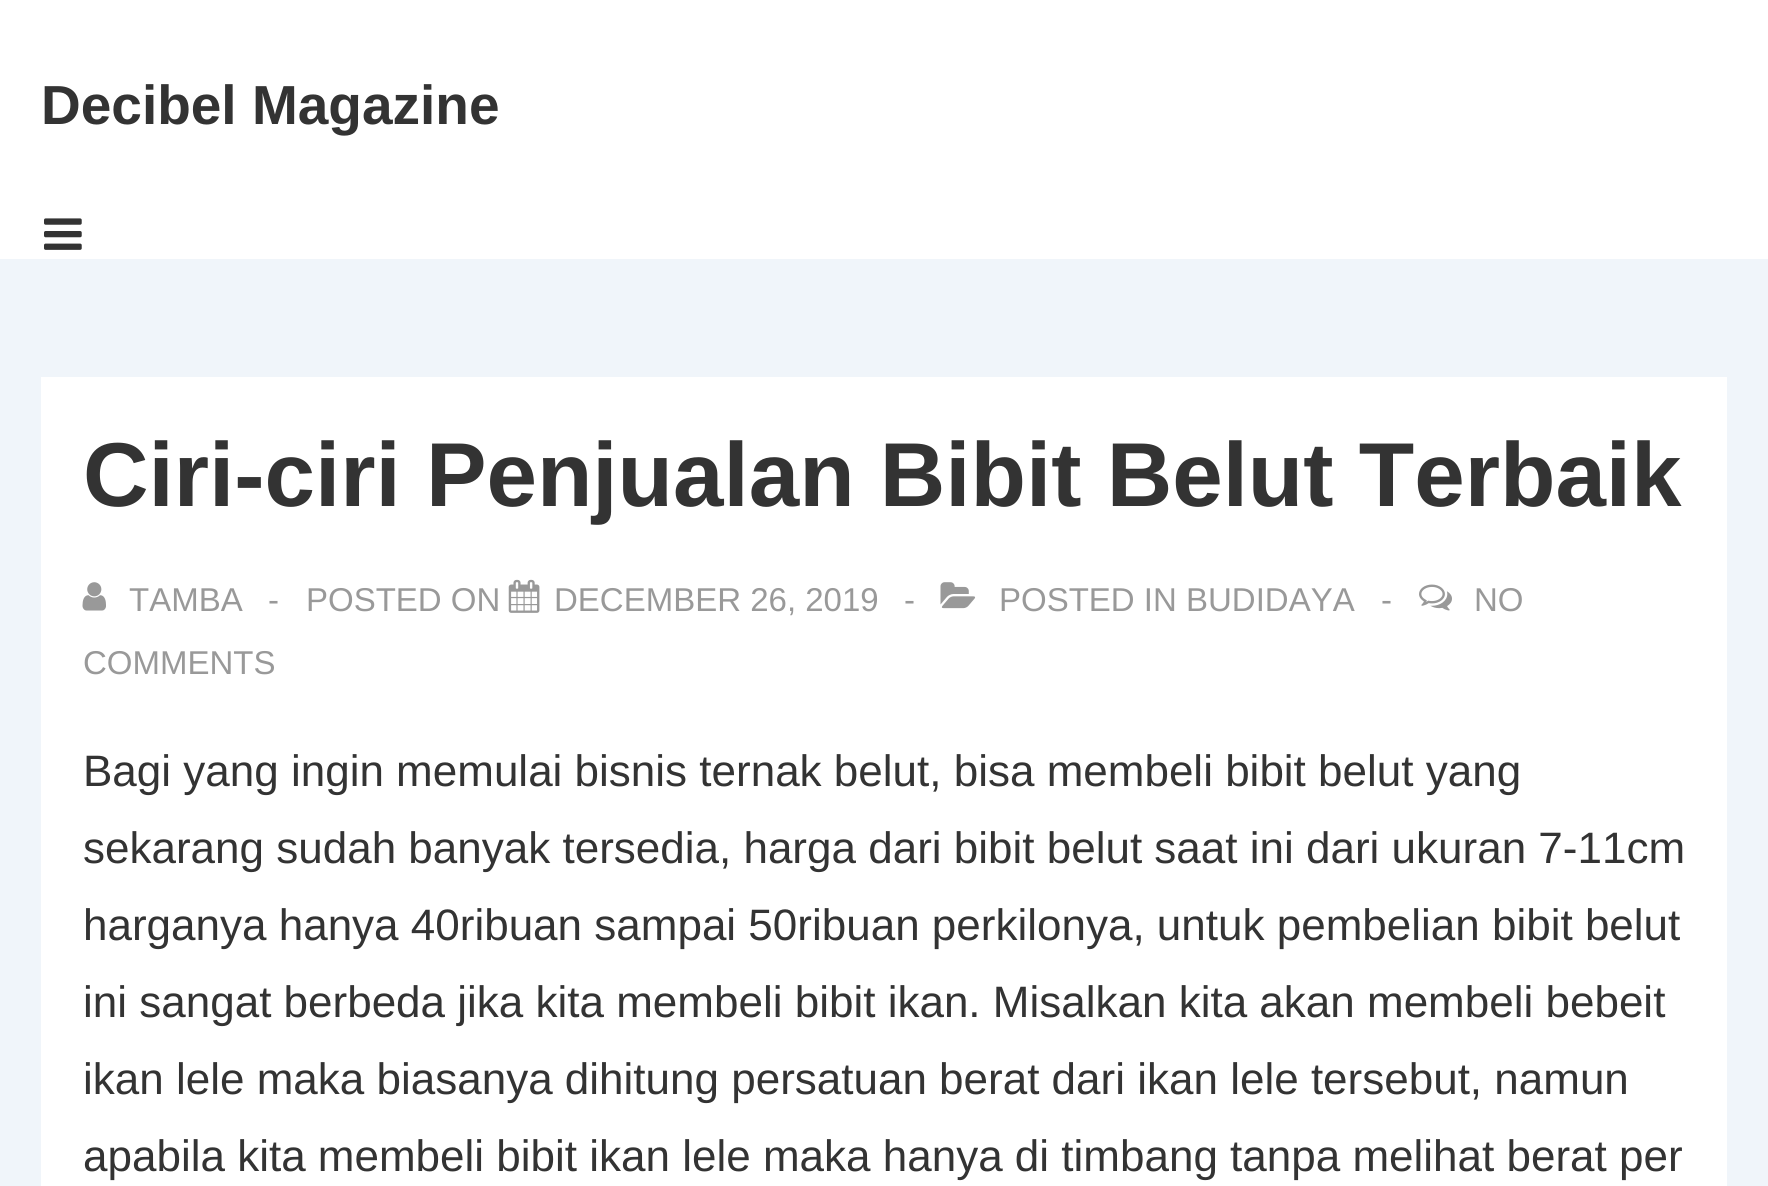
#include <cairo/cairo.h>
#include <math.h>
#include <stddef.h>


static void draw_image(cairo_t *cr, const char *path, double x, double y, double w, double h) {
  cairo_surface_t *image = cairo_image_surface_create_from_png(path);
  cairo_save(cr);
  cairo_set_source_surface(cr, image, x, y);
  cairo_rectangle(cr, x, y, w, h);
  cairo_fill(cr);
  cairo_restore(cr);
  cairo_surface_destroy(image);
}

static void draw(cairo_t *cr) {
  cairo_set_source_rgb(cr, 240 / 255.0, 245 / 255.0, 250 / 255.0);
  cairo_paint(cr);
  cairo_set_source_rgb(cr, 1, 1, 1);
  cairo_rectangle(cr, 0, 0, 1768, 259);
  cairo_fill(cr);
  draw_image(cr, "images/1.png", 44, 218, 38, 32);
  cairo_rectangle(cr, 41, 377, 1686, 809);
  cairo_fill(cr);
  draw_image(cr, "images/2.png", 82, 582, 24, 29);
  draw_image(cr, "images/3.png", 508, 579, 32, 34);
  draw_image(cr, "images/4.png", 940, 582, 36, 27);
  draw_image(cr, "images/5.png", 1419, 584, 33, 27);
  cairo_select_font_face(cr, "Liberation Sans", CAIRO_FONT_SLANT_NORMAL, CAIRO_FONT_WEIGHT_BOLD);
  cairo_set_font_size(cr, 55);
  cairo_set_source_rgb(cr, 51 / 255.0, 51 / 255.0, 51 / 255.0);
  cairo_move_to(cr, 41, 124);
  cairo_show_text(cr, "Decibel Magazine");
  cairo_set_font_size(cr, 90.75);
  cairo_move_to(cr, 83, 506);
  cairo_show_text(cr, "Ciri-ciri Penjualan Bibit Belut Terbaik");
  cairo_select_font_face(cr, "Liberation Sans", CAIRO_FONT_SLANT_NORMAL, CAIRO_FONT_WEIGHT_NORMAL);
  cairo_set_font_size(cr, 33);
  cairo_set_source_rgb(cr, 153 / 255.0, 153 / 255.0, 153 / 255.0);
  cairo_move_to(cr, 129, 611);
  cairo_show_text(cr, "TAMBA");
  cairo_move_to(cr, 268, 611);
  cairo_show_text(cr, "-");
  cairo_move_to(cr, 306, 611);
  cairo_show_text(cr, "POSTED ON");
  cairo_move_to(cr, 554, 611);
  cairo_show_text(cr, "DECEMBER 26, 2019");
  cairo_move_to(cr, 904, 611);
  cairo_show_text(cr, "-");
  cairo_move_to(cr, 999, 611);
  cairo_show_text(cr, "POSTED IN BUDIDAYA");
  cairo_move_to(cr, 1381, 611);
  cairo_show_text(cr, "-");
  cairo_move_to(cr, 1474, 611);
  cairo_show_text(cr, "NO");
  cairo_move_to(cr, 83, 674);
  cairo_show_text(cr, "COMMENTS");
  cairo_set_font_size(cr, 44);
  cairo_set_source_rgb(cr, 51 / 255.0, 51 / 255.0, 51 / 255.0);
  cairo_move_to(cr, 83, 786);
  cairo_show_text(cr, "Bagi yang ingin memulai bisnis ternak belut, bisa membeli bibit belut yang");
  cairo_move_to(cr, 83, 863);
  cairo_show_text(cr, "sekarang sudah banyak tersedia, harga dari bibit belut saat ini dari ukuran 7-11cm");
  cairo_move_to(cr, 83, 940);
  cairo_show_text(cr, "harganya hanya 40ribuan sampai 50ribuan perkilonya, untuk pembelian bibit belut");
  cairo_move_to(cr, 83, 1017);
  cairo_show_text(cr, "ini sangat berbeda jika kita membeli bibit ikan. Misalkan kita akan membeli bebeit");
  cairo_move_to(cr, 83, 1094);
  cairo_show_text(cr, "ikan lele maka biasanya dihitung persatuan berat dari ikan lele tersebut, namun");
  cairo_move_to(cr, 83, 1171);
  cairo_show_text(cr, "apabila kita membeli bibit ikan lele maka hanya di timbang tanpa melihat berat per");
}

int main(void) {
  cairo_surface_t *surface = cairo_image_surface_create(CAIRO_FORMAT_RGB24, 1768, 1186);
  cairo_t *cr = cairo_create(surface);
  cairo_font_options_t *options = cairo_font_options_create();
  cairo_font_options_set_hint_metrics(options, CAIRO_HINT_METRICS_OFF);
  cairo_font_options_set_hint_style(options, CAIRO_HINT_STYLE_NONE);
  cairo_set_font_options(cr, options);
  cairo_set_miter_limit(cr, 4);
  draw(cr);
  cairo_surface_write_to_png(surface, "out.png");
  cairo_font_options_destroy(options);
  cairo_destroy(cr);
  cairo_surface_destroy(surface);
  return 0;
}
